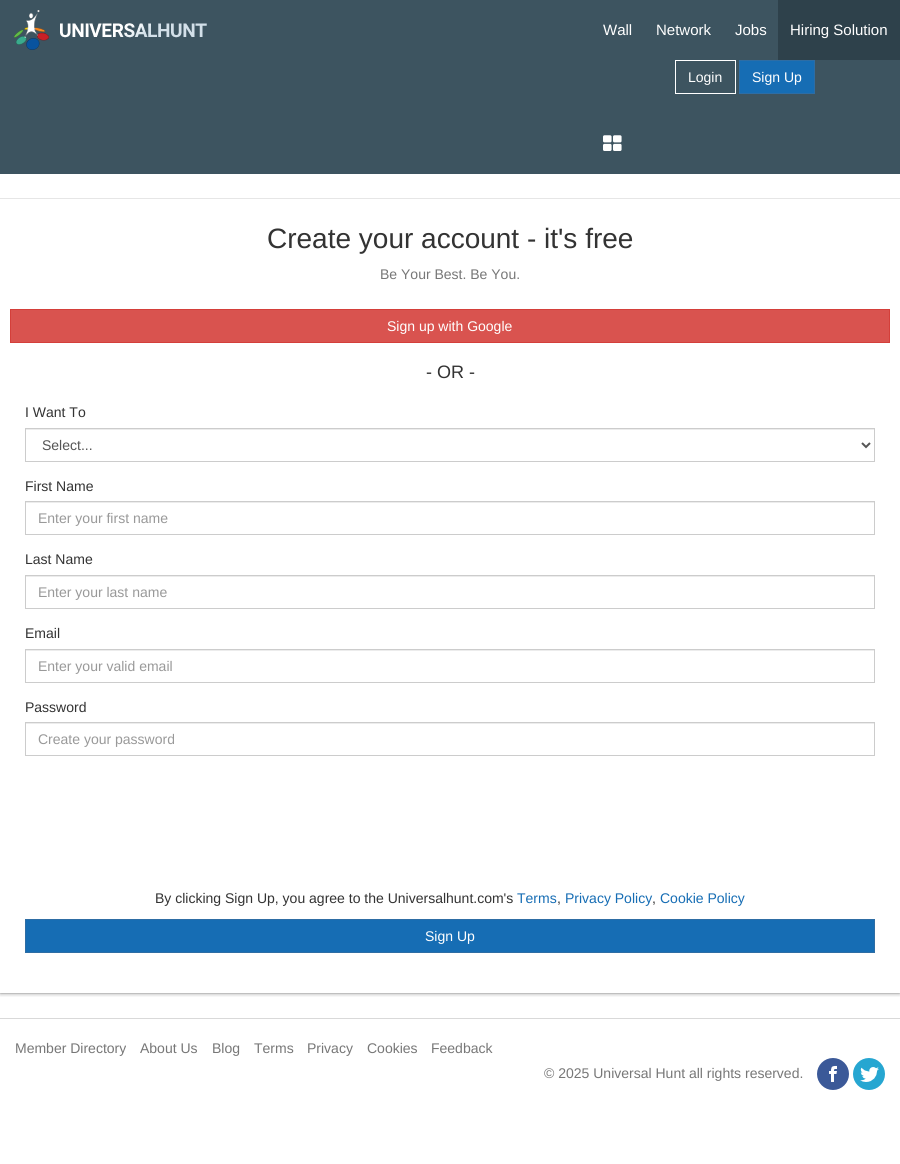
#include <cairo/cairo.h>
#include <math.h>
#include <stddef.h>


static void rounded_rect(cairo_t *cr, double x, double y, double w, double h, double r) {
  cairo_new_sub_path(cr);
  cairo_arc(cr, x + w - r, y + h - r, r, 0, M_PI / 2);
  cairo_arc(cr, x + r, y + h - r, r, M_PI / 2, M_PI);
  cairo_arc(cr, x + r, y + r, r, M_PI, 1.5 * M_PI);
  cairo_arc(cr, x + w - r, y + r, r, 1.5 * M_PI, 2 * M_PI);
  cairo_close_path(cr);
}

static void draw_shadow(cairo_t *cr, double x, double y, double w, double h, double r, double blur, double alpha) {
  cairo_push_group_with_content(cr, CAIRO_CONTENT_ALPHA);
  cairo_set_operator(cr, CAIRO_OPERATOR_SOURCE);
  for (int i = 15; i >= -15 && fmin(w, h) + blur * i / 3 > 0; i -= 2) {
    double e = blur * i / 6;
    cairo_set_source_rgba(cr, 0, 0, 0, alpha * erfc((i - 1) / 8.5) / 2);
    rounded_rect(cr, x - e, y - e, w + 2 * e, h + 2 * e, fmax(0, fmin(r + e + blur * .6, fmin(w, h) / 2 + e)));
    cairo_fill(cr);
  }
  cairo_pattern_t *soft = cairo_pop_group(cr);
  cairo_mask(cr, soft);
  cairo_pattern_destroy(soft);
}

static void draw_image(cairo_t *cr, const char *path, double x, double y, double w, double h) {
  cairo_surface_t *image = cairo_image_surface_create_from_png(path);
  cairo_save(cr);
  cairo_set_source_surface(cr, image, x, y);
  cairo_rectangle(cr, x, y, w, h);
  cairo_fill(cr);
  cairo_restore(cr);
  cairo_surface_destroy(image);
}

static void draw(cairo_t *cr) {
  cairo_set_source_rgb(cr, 1, 1, 1);
  cairo_paint(cr);
  cairo_set_source_rgb(cr, 61 / 255.0, 84 / 255.0, 96 / 255.0);
  cairo_rectangle(cr, 0, 0, 900, 174);
  cairo_fill(cr);
  draw_image(cr, "images/1.png", 14, 10, 193, 40);
  cairo_set_source_rgb(cr, 46 / 255.0, 65 / 255.0, 75 / 255.0);
  cairo_rectangle(cr, 778, 0, 122, 60);
  cairo_fill(cr);
  cairo_rectangle(cr, 675.5, 60.5, 60, 33);
  cairo_set_source_rgb(cr, 1, 1, 1);
  cairo_set_line_width(cr, 1);
  cairo_stroke(cr);
  cairo_set_source_rgb(cr, 22 / 255.0, 109 / 255.0, 180 / 255.0);
  cairo_rectangle(cr, 739.5, 60.5, 75, 33);
  cairo_fill_preserve(cr);
  cairo_set_source_rgb(cr, 46 / 255.0, 109 / 255.0, 164 / 255.0);
  cairo_stroke(cr);
  draw_image(cr, "images/2.png", 603, 135, 19, 16);
  cairo_save(cr);
  cairo_rectangle(cr, 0, 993, 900, 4);
  cairo_clip(cr);
  cairo_set_source_rgb(cr, 0, 0, 0);
  draw_shadow(cr, 0, 201, 900, 794, 0, 1.5, 0.2);
  cairo_restore(cr);
  cairo_rectangle(cr, -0.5, 198.5, 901, 795);
  cairo_set_source_rgba(cr, 0, 0, 0, 0.1);
  cairo_stroke(cr);
  cairo_set_source_rgb(cr, 217 / 255.0, 83 / 255.0, 79 / 255.0);
  cairo_rectangle(cr, 10.5, 309.5, 879, 33);
  cairo_fill_preserve(cr);
  cairo_set_source_rgb(cr, 212 / 255.0, 63 / 255.0, 58 / 255.0);
  cairo_stroke(cr);
  cairo_set_source_rgb(cr, 236 / 255.0, 236 / 255.0, 236 / 255.0);
  cairo_rectangle(cr, 26, 429, 848, 1);
  cairo_fill(cr);
  cairo_rectangle(cr, 25.5, 428.5, 849, 33);
  cairo_set_source_rgb(cr, 204 / 255.0, 204 / 255.0, 204 / 255.0);
  cairo_stroke(cr);
  cairo_new_path(cr);
  cairo_move_to(cr, 862, 443);
  cairo_line_to(cr, 866, 447);
  cairo_line_to(cr, 870, 443);
  cairo_set_source_rgb(cr, 85 / 255.0, 85 / 255.0, 85 / 255.0);
  cairo_set_line_width(cr, 2);
  cairo_stroke(cr);
  cairo_set_source_rgb(cr, 236 / 255.0, 236 / 255.0, 236 / 255.0);
  cairo_rectangle(cr, 26, 502, 848, 1);
  cairo_fill(cr);
  cairo_rectangle(cr, 25.5, 501.5, 849, 33);
  cairo_set_source_rgb(cr, 204 / 255.0, 204 / 255.0, 204 / 255.0);
  cairo_set_line_width(cr, 1);
  cairo_stroke(cr);
  cairo_set_source_rgb(cr, 236 / 255.0, 236 / 255.0, 236 / 255.0);
  cairo_rectangle(cr, 26, 576, 848, 1);
  cairo_fill(cr);
  cairo_rectangle(cr, 25.5, 575.5, 849, 33);
  cairo_set_source_rgb(cr, 204 / 255.0, 204 / 255.0, 204 / 255.0);
  cairo_stroke(cr);
  cairo_set_source_rgb(cr, 236 / 255.0, 236 / 255.0, 236 / 255.0);
  cairo_rectangle(cr, 26, 650, 848, 1);
  cairo_fill(cr);
  cairo_rectangle(cr, 25.5, 649.5, 849, 33);
  cairo_set_source_rgb(cr, 204 / 255.0, 204 / 255.0, 204 / 255.0);
  cairo_stroke(cr);
  cairo_set_source_rgb(cr, 236 / 255.0, 236 / 255.0, 236 / 255.0);
  cairo_rectangle(cr, 26, 723, 848, 1);
  cairo_fill(cr);
  cairo_rectangle(cr, 25.5, 722.5, 849, 33);
  cairo_set_source_rgb(cr, 204 / 255.0, 204 / 255.0, 204 / 255.0);
  cairo_stroke(cr);
  cairo_set_source_rgb(cr, 22 / 255.0, 109 / 255.0, 180 / 255.0);
  cairo_rectangle(cr, 25.5, 919.5, 849, 33);
  cairo_fill_preserve(cr);
  cairo_set_source_rgb(cr, 46 / 255.0, 109 / 255.0, 164 / 255.0);
  cairo_stroke(cr);
  cairo_set_source_rgb(cr, 217 / 255.0, 217 / 255.0, 217 / 255.0);
  cairo_rectangle(cr, 0, 1018, 900, 1);
  cairo_fill(cr);
  draw_image(cr, "images/3.png", 817, 1058, 32, 32);
  draw_image(cr, "images/4.png", 853, 1058, 32, 32);
  cairo_select_font_face(cr, "Arimo", CAIRO_FONT_SLANT_NORMAL, CAIRO_FONT_WEIGHT_NORMAL);
  cairo_set_font_size(cr, 15);
  cairo_set_source_rgb(cr, 1, 1, 1);
  cairo_move_to(cr, 603, 35);
  cairo_show_text(cr, "Wall");
  cairo_move_to(cr, 656, 35);
  cairo_show_text(cr, "Network");
  cairo_move_to(cr, 735, 35);
  cairo_show_text(cr, "Jobs");
  cairo_move_to(cr, 790, 35);
  cairo_show_text(cr, "Hiring Solution");
  cairo_set_font_size(cr, 14);
  cairo_move_to(cr, 688, 82);
  cairo_show_text(cr, "Login");
  cairo_move_to(cr, 752, 82);
  cairo_show_text(cr, "Sign Up");
  cairo_set_font_size(cr, 28);
  cairo_set_source_rgb(cr, 51 / 255.0, 51 / 255.0, 51 / 255.0);
  cairo_move_to(cr, 267, 248);
  cairo_show_text(cr, "Create your account - it's free");
  cairo_set_font_size(cr, 14);
  cairo_set_source_rgb(cr, 119 / 255.0, 119 / 255.0, 119 / 255.0);
  cairo_move_to(cr, 380, 279);
  cairo_show_text(cr, "Be Your Best. Be You.");
  cairo_set_source_rgb(cr, 1, 1, 1);
  cairo_move_to(cr, 387, 331);
  cairo_show_text(cr, "Sign up with Google");
  cairo_set_font_size(cr, 18);
  cairo_set_source_rgb(cr, 51 / 255.0, 51 / 255.0, 51 / 255.0);
  cairo_move_to(cr, 426, 378);
  cairo_show_text(cr, "- OR -");
  cairo_set_font_size(cr, 14);
  cairo_move_to(cr, 25, 417);
  cairo_show_text(cr, "I Want To");
  cairo_set_source_rgb(cr, 85 / 255.0, 85 / 255.0, 85 / 255.0);
  cairo_move_to(cr, 42, 450);
  cairo_show_text(cr, "Select...");
  cairo_set_source_rgb(cr, 51 / 255.0, 51 / 255.0, 51 / 255.0);
  cairo_move_to(cr, 25, 491);
  cairo_show_text(cr, "First Name");
  cairo_set_source_rgb(cr, 153 / 255.0, 153 / 255.0, 153 / 255.0);
  cairo_move_to(cr, 38, 523);
  cairo_show_text(cr, "Enter your first name");
  cairo_set_source_rgb(cr, 51 / 255.0, 51 / 255.0, 51 / 255.0);
  cairo_move_to(cr, 25, 564);
  cairo_show_text(cr, "Last Name");
  cairo_set_source_rgb(cr, 153 / 255.0, 153 / 255.0, 153 / 255.0);
  cairo_move_to(cr, 38, 597);
  cairo_show_text(cr, "Enter your last name");
  cairo_set_source_rgb(cr, 51 / 255.0, 51 / 255.0, 51 / 255.0);
  cairo_move_to(cr, 25, 638);
  cairo_show_text(cr, "Email");
  cairo_set_source_rgb(cr, 153 / 255.0, 153 / 255.0, 153 / 255.0);
  cairo_move_to(cr, 38, 671);
  cairo_show_text(cr, "Enter your valid email");
  cairo_set_source_rgb(cr, 51 / 255.0, 51 / 255.0, 51 / 255.0);
  cairo_move_to(cr, 25, 712);
  cairo_show_text(cr, "Password");
  cairo_set_source_rgb(cr, 153 / 255.0, 153 / 255.0, 153 / 255.0);
  cairo_move_to(cr, 38, 744);
  cairo_show_text(cr, "Create your password");
  cairo_set_source_rgb(cr, 51 / 255.0, 51 / 255.0, 51 / 255.0);
  cairo_move_to(cr, 155, 903);
  cairo_show_text(cr, "By clicking Sign Up, you agree to the Universalhunt.com's");
  cairo_set_source_rgb(cr, 22 / 255.0, 109 / 255.0, 180 / 255.0);
  cairo_move_to(cr, 517, 903);
  cairo_show_text(cr, "Terms");
  cairo_set_source_rgb(cr, 51 / 255.0, 51 / 255.0, 51 / 255.0);
  cairo_move_to(cr, 557, 903);
  cairo_show_text(cr, ",");
  cairo_set_source_rgb(cr, 22 / 255.0, 109 / 255.0, 180 / 255.0);
  cairo_move_to(cr, 565, 903);
  cairo_show_text(cr, "Privacy Policy");
  cairo_set_source_rgb(cr, 51 / 255.0, 51 / 255.0, 51 / 255.0);
  cairo_move_to(cr, 652, 903);
  cairo_show_text(cr, ",");
  cairo_set_source_rgb(cr, 22 / 255.0, 109 / 255.0, 180 / 255.0);
  cairo_move_to(cr, 660, 903);
  cairo_show_text(cr, "Cookie Policy");
  cairo_set_source_rgb(cr, 1, 1, 1);
  cairo_move_to(cr, 425, 941);
  cairo_show_text(cr, "Sign Up");
  cairo_set_source_rgb(cr, 119 / 255.0, 119 / 255.0, 119 / 255.0);
  cairo_move_to(cr, 15, 1053);
  cairo_show_text(cr, "Member Directory");
  cairo_move_to(cr, 140, 1053);
  cairo_show_text(cr, "About Us");
  cairo_move_to(cr, 212, 1053);
  cairo_show_text(cr, "Blog");
  cairo_move_to(cr, 254, 1053);
  cairo_show_text(cr, "Terms");
  cairo_move_to(cr, 307, 1053);
  cairo_show_text(cr, "Privacy");
  cairo_move_to(cr, 367, 1053);
  cairo_show_text(cr, "Cookies");
  cairo_move_to(cr, 431, 1053);
  cairo_show_text(cr, "Feedback");
  cairo_move_to(cr, 544, 1078);
  cairo_show_text(cr, "© 2025 Universal Hunt all rights reserved.");
}

int main(void) {
  cairo_surface_t *surface = cairo_image_surface_create(CAIRO_FORMAT_RGB24, 900, 1164);
  cairo_t *cr = cairo_create(surface);
  cairo_font_options_t *options = cairo_font_options_create();
  cairo_font_options_set_hint_metrics(options, CAIRO_HINT_METRICS_OFF);
  cairo_font_options_set_hint_style(options, CAIRO_HINT_STYLE_NONE);
  cairo_set_font_options(cr, options);
  cairo_set_miter_limit(cr, 4);
  draw(cr);
  cairo_surface_write_to_png(surface, "out.png");
  cairo_font_options_destroy(options);
  cairo_destroy(cr);
  cairo_surface_destroy(surface);
  return 0;
}
